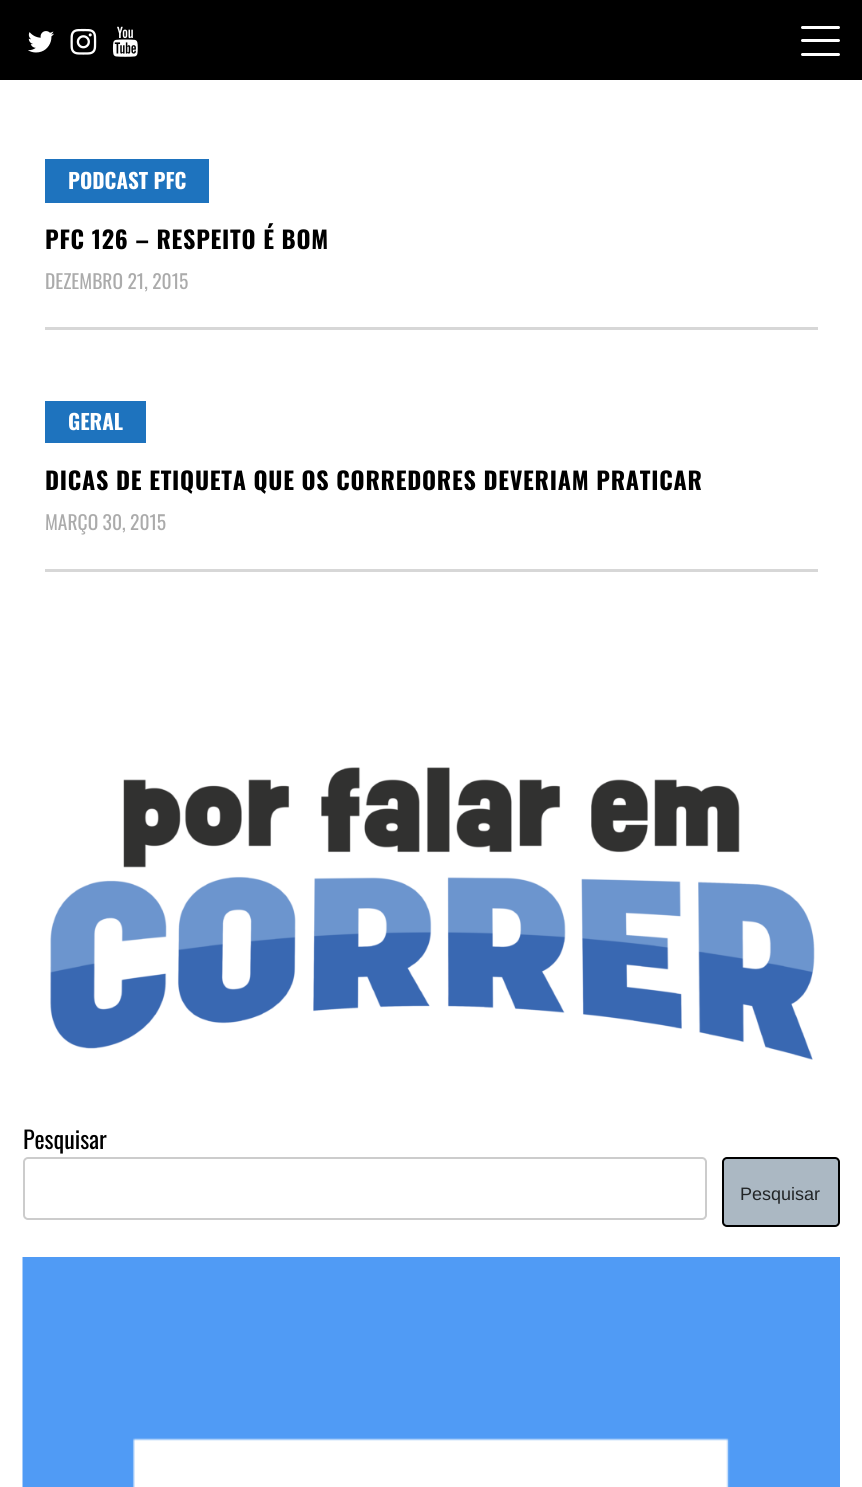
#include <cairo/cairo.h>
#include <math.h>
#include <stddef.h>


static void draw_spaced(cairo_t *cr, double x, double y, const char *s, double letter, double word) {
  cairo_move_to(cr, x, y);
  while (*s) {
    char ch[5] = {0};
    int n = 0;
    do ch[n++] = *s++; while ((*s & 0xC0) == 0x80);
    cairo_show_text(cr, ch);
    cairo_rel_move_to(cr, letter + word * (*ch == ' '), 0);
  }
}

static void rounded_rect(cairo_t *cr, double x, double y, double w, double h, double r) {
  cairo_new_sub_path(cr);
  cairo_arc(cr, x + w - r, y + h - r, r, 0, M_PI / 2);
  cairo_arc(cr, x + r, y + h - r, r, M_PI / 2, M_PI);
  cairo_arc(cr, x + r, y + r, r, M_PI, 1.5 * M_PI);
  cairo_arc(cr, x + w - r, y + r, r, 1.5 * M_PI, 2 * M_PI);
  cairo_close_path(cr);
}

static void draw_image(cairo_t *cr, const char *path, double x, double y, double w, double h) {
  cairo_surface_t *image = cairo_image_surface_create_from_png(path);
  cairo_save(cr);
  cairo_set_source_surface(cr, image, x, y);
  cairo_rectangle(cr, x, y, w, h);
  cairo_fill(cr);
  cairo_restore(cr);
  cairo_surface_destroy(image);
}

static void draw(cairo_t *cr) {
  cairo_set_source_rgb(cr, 1, 1, 1);
  cairo_paint(cr);
  cairo_set_source_rgb(cr, 0, 0, 0);
  cairo_rectangle(cr, 0, 0, 862, 80);
  cairo_fill(cr);
  draw_image(cr, "images/1.png", 28, 31, 26, 22);
  draw_image(cr, "images/2.png", 70, 28, 27, 27);
  draw_image(cr, "images/3.png", 112, 26, 26, 31);
  cairo_set_source_rgb(cr, 1, 1, 1);
  rounded_rect(cr, 801, 39, 39, 3, 1.5);
  cairo_fill(cr);
  rounded_rect(cr, 801, 26, 39, 3, 1.5);
  cairo_fill(cr);
  rounded_rect(cr, 801, 53, 39, 3, 1.5);
  cairo_fill(cr);
  cairo_set_source_rgb(cr, 215 / 255.0, 215 / 255.0, 215 / 255.0);
  cairo_rectangle(cr, 45, 327, 773, 3);
  cairo_fill(cr);
  cairo_set_source_rgb(cr, 30 / 255.0, 115 / 255.0, 190 / 255.0);
  cairo_rectangle(cr, 45, 159, 164, 44);
  cairo_fill(cr);
  cairo_set_source_rgb(cr, 215 / 255.0, 215 / 255.0, 215 / 255.0);
  cairo_rectangle(cr, 45, 569, 773, 3);
  cairo_fill(cr);
  cairo_set_source_rgb(cr, 30 / 255.0, 115 / 255.0, 190 / 255.0);
  cairo_rectangle(cr, 45, 401, 101, 42);
  cairo_fill(cr);
  draw_image(cr, "images/4.png", 50, 767, 765, 293);
  rounded_rect(cr, 24, 1158, 682, 61, 4);
  cairo_set_source_rgb(cr, 204 / 255.0, 204 / 255.0, 204 / 255.0);
  cairo_stroke(cr);
  cairo_set_source_rgb(cr, 171 / 255.0, 184 / 255.0, 195 / 255.0);
  rounded_rect(cr, 723, 1158, 116, 68, 4);
  cairo_fill_preserve(cr);
  cairo_set_source_rgb(cr, 0, 0, 0);
  cairo_stroke(cr);
  draw_image(cr, "images/5.png", 22, 1257, 818, 230);
  cairo_select_font_face(cr, "Oswald", CAIRO_FONT_SLANT_NORMAL, CAIRO_FONT_WEIGHT_BOLD);
  cairo_set_font_size(cr, 21);
  cairo_set_source_rgb(cr, 1, 1, 1);
  cairo_move_to(cr, 68, 189);
  cairo_show_text(cr, "PODCAST PFC");
  cairo_set_font_size(cr, 24);
  cairo_set_source_rgb(cr, 0, 0, 0);
  draw_spaced(cr, 45, 249, "PFC 126 – RESPEITO É BOM", 0.75, 0);
  cairo_select_font_face(cr, "Oswald", CAIRO_FONT_SLANT_NORMAL, CAIRO_FONT_WEIGHT_NORMAL);
  cairo_set_font_size(cr, 19.5);
  cairo_set_source_rgb(cr, 171 / 255.0, 171 / 255.0, 171 / 255.0);
  cairo_move_to(cr, 45, 289);
  cairo_show_text(cr, "DEZEMBRO 21, 2015");
  cairo_select_font_face(cr, "Oswald", CAIRO_FONT_SLANT_NORMAL, CAIRO_FONT_WEIGHT_BOLD);
  cairo_set_font_size(cr, 21);
  cairo_set_source_rgb(cr, 1, 1, 1);
  cairo_move_to(cr, 68, 430);
  cairo_show_text(cr, "GERAL");
  cairo_set_font_size(cr, 24);
  cairo_set_source_rgb(cr, 0, 0, 0);
  draw_spaced(cr, 45, 490, "DICAS DE ETIQUETA QUE OS CORREDORES DEVERIAM PRATICAR", 0.75, 0);
  cairo_select_font_face(cr, "Oswald", CAIRO_FONT_SLANT_NORMAL, CAIRO_FONT_WEIGHT_NORMAL);
  cairo_set_font_size(cr, 19.5);
  cairo_set_source_rgb(cr, 171 / 255.0, 171 / 255.0, 171 / 255.0);
  cairo_move_to(cr, 45, 530);
  cairo_show_text(cr, "MARÇO 30, 2015");
  cairo_set_font_size(cr, 24);
  cairo_set_source_rgb(cr, 0, 0, 0);
  cairo_move_to(cr, 23, 1149);
  cairo_show_text(cr, "Pesquisar");
  cairo_select_font_face(cr, "Liberation Sans", CAIRO_FONT_SLANT_NORMAL, CAIRO_FONT_WEIGHT_NORMAL);
  cairo_set_font_size(cr, 18);
  cairo_set_source_rgb(cr, 34 / 255.0, 37 / 255.0, 39 / 255.0);
  cairo_move_to(cr, 740, 1200);
  cairo_show_text(cr, "Pesquisar");
}

int main(void) {
  cairo_surface_t *surface = cairo_image_surface_create(CAIRO_FORMAT_RGB24, 862, 1487);
  cairo_t *cr = cairo_create(surface);
  cairo_font_options_t *options = cairo_font_options_create();
  cairo_font_options_set_hint_metrics(options, CAIRO_HINT_METRICS_OFF);
  cairo_font_options_set_hint_style(options, CAIRO_HINT_STYLE_NONE);
  cairo_set_font_options(cr, options);
  cairo_set_miter_limit(cr, 4);
  draw(cr);
  cairo_surface_write_to_png(surface, "out.png");
  cairo_font_options_destroy(options);
  cairo_destroy(cr);
  cairo_surface_destroy(surface);
  return 0;
}
